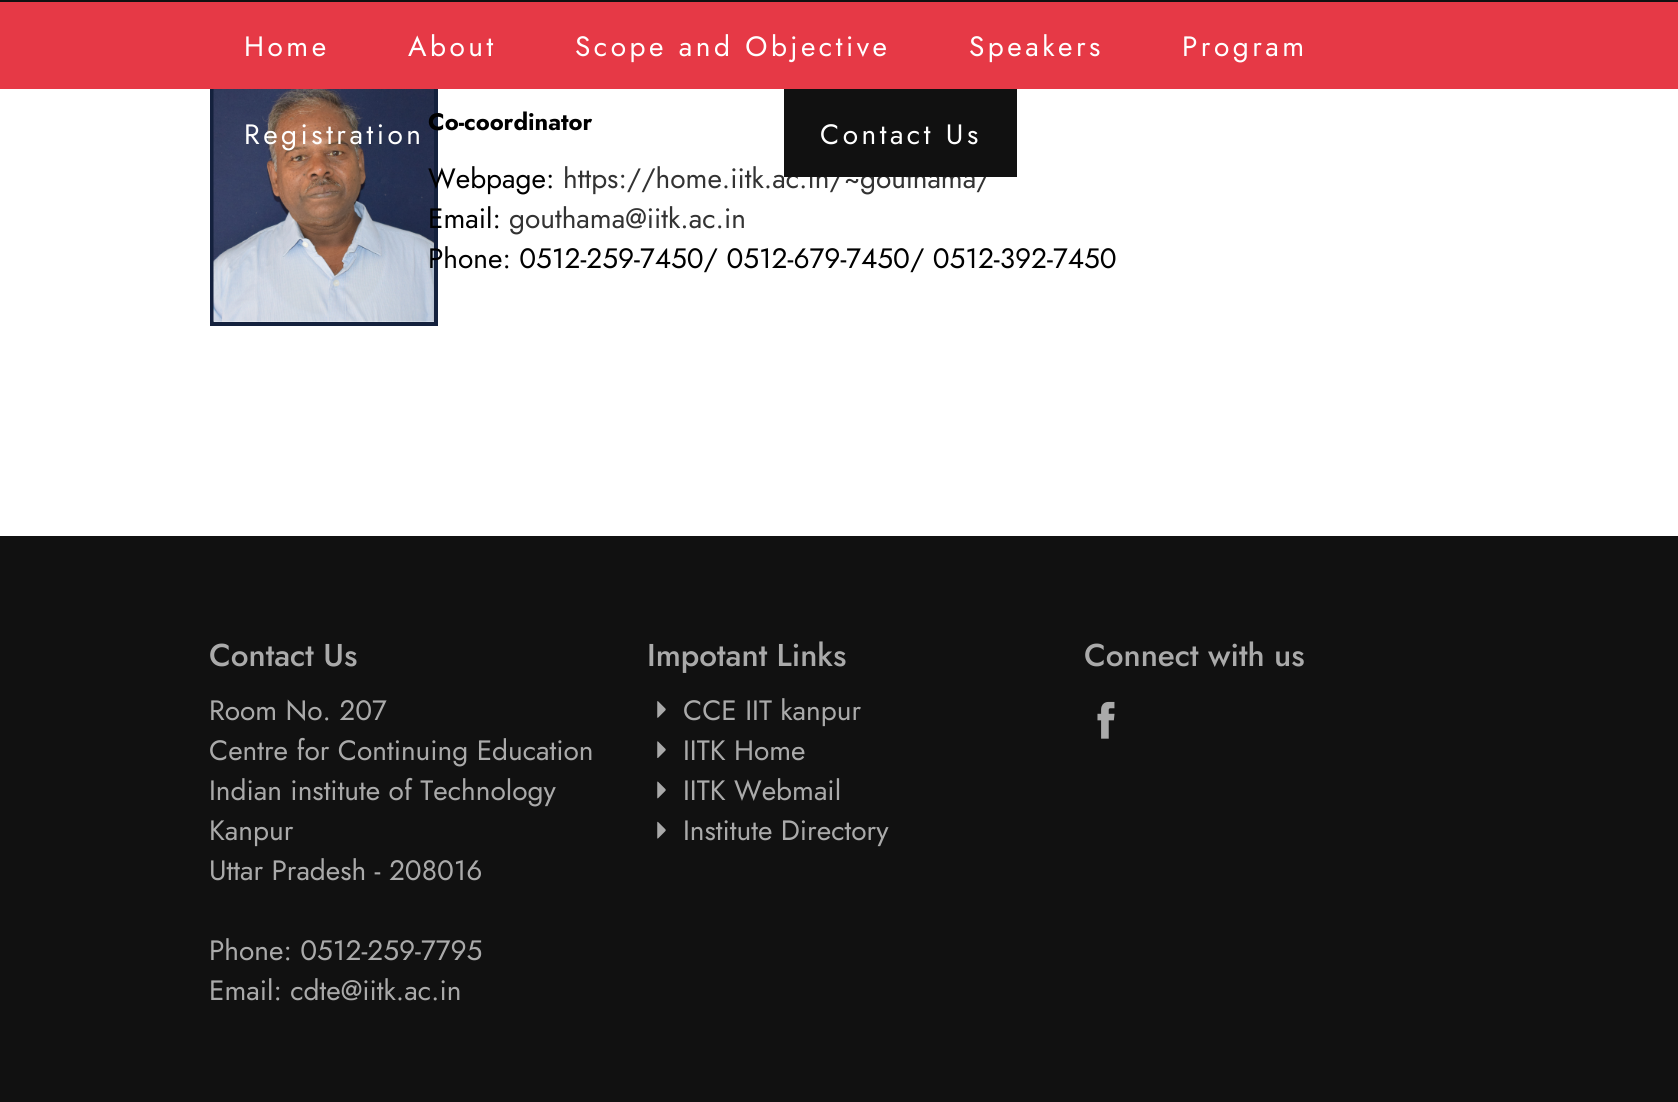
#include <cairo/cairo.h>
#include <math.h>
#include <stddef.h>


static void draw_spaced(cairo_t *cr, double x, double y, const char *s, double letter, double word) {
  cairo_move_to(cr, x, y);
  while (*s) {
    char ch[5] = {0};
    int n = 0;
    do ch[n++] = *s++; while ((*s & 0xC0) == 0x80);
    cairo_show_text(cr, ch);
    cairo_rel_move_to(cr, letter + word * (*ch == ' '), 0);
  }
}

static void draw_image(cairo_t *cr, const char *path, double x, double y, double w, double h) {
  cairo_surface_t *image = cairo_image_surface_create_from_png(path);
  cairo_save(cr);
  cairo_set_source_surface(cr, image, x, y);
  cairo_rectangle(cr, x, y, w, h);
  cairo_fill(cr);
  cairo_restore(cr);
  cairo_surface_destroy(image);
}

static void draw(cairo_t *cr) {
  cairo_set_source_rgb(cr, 1, 1, 1);
  cairo_paint(cr);
  cairo_rectangle(cr, 212, 65, 224, 259);
  cairo_set_source_rgb(cr, 20 / 255.0, 33 / 255.0, 61 / 255.0);
  cairo_set_line_width(cr, 4);
  cairo_stroke(cr);
  cairo_set_source_rgb(cr, 230 / 255.0, 57 / 255.0, 70 / 255.0);
  cairo_rectangle(cr, 0, 2, 1678, 87);
  cairo_fill(cr);
  cairo_set_source_rgb(cr, 17 / 255.0, 17 / 255.0, 17 / 255.0);
  cairo_rectangle(cr, 0, 0, 1678, 2);
  cairo_fill(cr);
  draw_image(cr, "images/1.png", 213, 89, 221, 233);
  cairo_rectangle(cr, 0, 536, 1678, 566);
  cairo_fill(cr);
  draw_image(cr, "images/2.png", 657, 701, 9, 17);
  draw_image(cr, "images/3.png", 657, 741, 9, 17);
  draw_image(cr, "images/4.png", 657, 781, 9, 18);
  draw_image(cr, "images/5.png", 657, 821, 9, 18);
  draw_image(cr, "images/6.png", 1097, 701, 18, 38);
  cairo_select_font_face(cr, "Jost", CAIRO_FONT_SLANT_NORMAL, CAIRO_FONT_WEIGHT_NORMAL);
  cairo_set_font_size(cr, 28);
  cairo_set_source_rgb(cr, 1, 1, 1);
  draw_spaced(cr, 244, 56, "Home", 3.5, 0);
  draw_spaced(cr, 408, 56, "About", 3.5, 0);
  draw_spaced(cr, 575, 56, "Scope and Objective", 3.5, 0);
  draw_spaced(cr, 969, 56, "Speakers", 3.5, 0);
  draw_spaced(cr, 1182, 56, "Program", 3.5, 0);
  draw_spaced(cr, 244, 144, "Registration", 3.5, 0);
  cairo_select_font_face(cr, "Jost", CAIRO_FONT_SLANT_NORMAL, CAIRO_FONT_WEIGHT_BOLD);
  cairo_set_font_size(cr, 23.75);
  cairo_set_source_rgb(cr, 0, 0, 0);
  cairo_move_to(cr, 428, 130);
  cairo_show_text(cr, "Co-coordinator");
  cairo_select_font_face(cr, "Jost", CAIRO_FONT_SLANT_NORMAL, CAIRO_FONT_WEIGHT_NORMAL);
  cairo_set_font_size(cr, 28);
  cairo_move_to(cr, 428, 188);
  cairo_show_text(cr, "Webpage:");
  cairo_set_source_rgb(cr, 51 / 255.0, 51 / 255.0, 51 / 255.0);
  cairo_move_to(cr, 563, 188);
  cairo_show_text(cr, "https://home.iitk.ac.in/~gouthama/");
  cairo_set_source_rgb(cr, 17 / 255.0, 17 / 255.0, 17 / 255.0);
  cairo_rectangle(cr, 784, 89, 233, 88);
  cairo_fill(cr);
  cairo_set_source_rgb(cr, 1, 1, 1);
  draw_spaced(cr, 820, 144, "Contact Us", 3.5, 0);
  cairo_set_source_rgb(cr, 0, 0, 0);
  cairo_move_to(cr, 428, 228);
  cairo_show_text(cr, "Email:");
  cairo_set_source_rgb(cr, 51 / 255.0, 51 / 255.0, 51 / 255.0);
  cairo_move_to(cr, 509, 228);
  cairo_show_text(cr, "gouthama@iitk.ac.in");
  cairo_set_source_rgb(cr, 0, 0, 0);
  cairo_move_to(cr, 428, 268);
  cairo_show_text(cr, "Phone: 0512-259-7450/ 0512-679-7450/ 0512-392-7450");
  cairo_select_font_face(cr, "Jost Medium", CAIRO_FONT_SLANT_NORMAL, CAIRO_FONT_WEIGHT_NORMAL);
  cairo_set_font_size(cr, 31.5);
  cairo_set_source_rgb(cr, 170 / 255.0, 170 / 255.0, 170 / 255.0);
  cairo_move_to(cr, 209, 666);
  cairo_show_text(cr, "Contact Us");
  cairo_select_font_face(cr, "Jost", CAIRO_FONT_SLANT_NORMAL, CAIRO_FONT_WEIGHT_NORMAL);
  cairo_set_font_size(cr, 28);
  cairo_move_to(cr, 209, 720);
  cairo_show_text(cr, "Room No. 207");
  cairo_move_to(cr, 209, 760);
  cairo_show_text(cr, "Centre for Continuing Education");
  cairo_move_to(cr, 209, 800);
  cairo_show_text(cr, "Indian institute of Technology");
  cairo_move_to(cr, 209, 840);
  cairo_show_text(cr, "Kanpur");
  cairo_move_to(cr, 209, 880);
  cairo_show_text(cr, "Uttar Pradesh - 208016");
  cairo_move_to(cr, 209, 960);
  cairo_show_text(cr, "Phone: 0512-259-7795");
  cairo_move_to(cr, 209, 1000);
  cairo_show_text(cr, "Email: cdte@iitk.ac.in");
  cairo_select_font_face(cr, "Jost Medium", CAIRO_FONT_SLANT_NORMAL, CAIRO_FONT_WEIGHT_NORMAL);
  cairo_set_font_size(cr, 31.5);
  cairo_move_to(cr, 647, 666);
  cairo_show_text(cr, "Impotant Links");
  cairo_select_font_face(cr, "Jost", CAIRO_FONT_SLANT_NORMAL, CAIRO_FONT_WEIGHT_NORMAL);
  cairo_set_font_size(cr, 28);
  cairo_move_to(cr, 683, 720);
  cairo_show_text(cr, "CCE IIT kanpur");
  cairo_move_to(cr, 683, 760);
  cairo_show_text(cr, "IITK Home");
  cairo_move_to(cr, 683, 800);
  cairo_show_text(cr, "IITK Webmail");
  cairo_move_to(cr, 683, 840);
  cairo_show_text(cr, "Institute Directory");
  cairo_select_font_face(cr, "Jost Medium", CAIRO_FONT_SLANT_NORMAL, CAIRO_FONT_WEIGHT_NORMAL);
  cairo_set_font_size(cr, 31.5);
  cairo_move_to(cr, 1084, 666);
  cairo_show_text(cr, "Connect with us");
}

int main(void) {
  cairo_surface_t *surface = cairo_image_surface_create(CAIRO_FORMAT_RGB24, 1678, 1102);
  cairo_t *cr = cairo_create(surface);
  cairo_font_options_t *options = cairo_font_options_create();
  cairo_font_options_set_hint_metrics(options, CAIRO_HINT_METRICS_OFF);
  cairo_font_options_set_hint_style(options, CAIRO_HINT_STYLE_NONE);
  cairo_set_font_options(cr, options);
  cairo_set_miter_limit(cr, 4);
  draw(cr);
  cairo_surface_write_to_png(surface, "out.png");
  cairo_font_options_destroy(options);
  cairo_destroy(cr);
  cairo_surface_destroy(surface);
  return 0;
}
